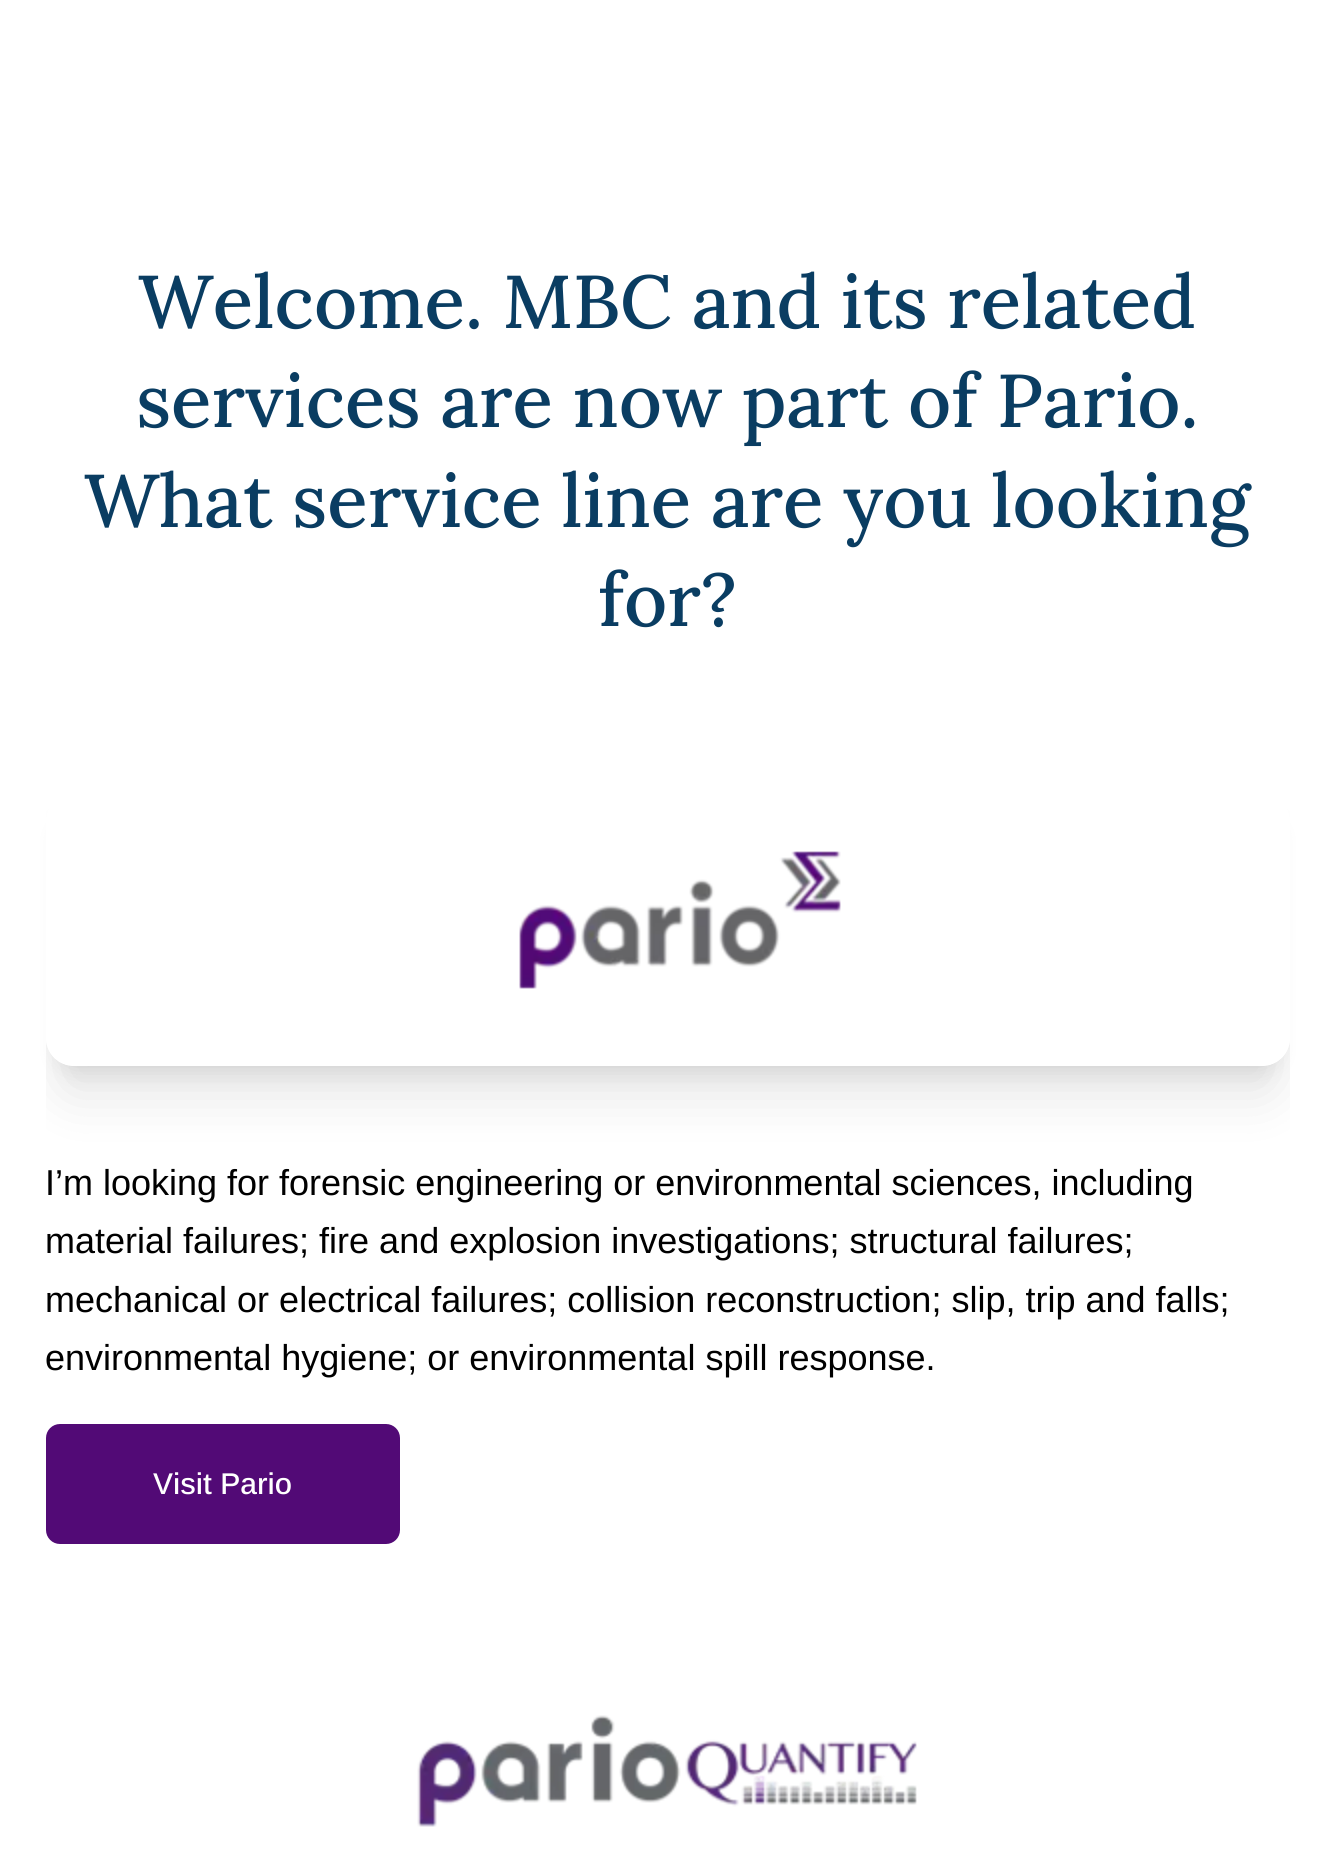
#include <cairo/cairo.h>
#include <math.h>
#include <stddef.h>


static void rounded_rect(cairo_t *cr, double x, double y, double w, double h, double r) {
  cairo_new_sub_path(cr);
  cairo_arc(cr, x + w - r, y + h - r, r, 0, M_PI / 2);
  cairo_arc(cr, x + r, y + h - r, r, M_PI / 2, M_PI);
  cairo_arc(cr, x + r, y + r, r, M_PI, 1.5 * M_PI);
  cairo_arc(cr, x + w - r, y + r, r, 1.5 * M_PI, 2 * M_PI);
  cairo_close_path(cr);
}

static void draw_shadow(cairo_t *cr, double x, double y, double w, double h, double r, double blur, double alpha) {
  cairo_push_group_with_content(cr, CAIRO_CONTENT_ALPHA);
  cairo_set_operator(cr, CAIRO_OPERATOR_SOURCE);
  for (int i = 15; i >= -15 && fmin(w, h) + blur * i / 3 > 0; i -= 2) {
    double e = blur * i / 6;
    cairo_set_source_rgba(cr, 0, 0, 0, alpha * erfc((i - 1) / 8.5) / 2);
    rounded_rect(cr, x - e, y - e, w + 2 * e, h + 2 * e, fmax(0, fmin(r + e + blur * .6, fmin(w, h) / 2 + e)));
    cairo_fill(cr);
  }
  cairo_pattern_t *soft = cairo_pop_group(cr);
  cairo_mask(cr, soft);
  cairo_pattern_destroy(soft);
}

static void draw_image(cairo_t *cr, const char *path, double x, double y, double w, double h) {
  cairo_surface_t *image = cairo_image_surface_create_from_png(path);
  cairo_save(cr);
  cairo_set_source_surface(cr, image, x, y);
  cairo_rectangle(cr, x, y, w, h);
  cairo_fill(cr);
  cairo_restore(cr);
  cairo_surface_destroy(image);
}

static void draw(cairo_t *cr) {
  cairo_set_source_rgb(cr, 1, 1, 1);
  cairo_paint(cr);
  cairo_save(cr);
  cairo_set_fill_rule(cr, CAIRO_FILL_RULE_EVEN_ODD);
  cairo_new_path(cr);
  cairo_move_to(cr, 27, 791);
  cairo_line_to(cr, 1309, 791);
  cairo_line_to(cr, 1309, 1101);
  cairo_line_to(cr, 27, 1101);
  cairo_close_path(cr);
  cairo_move_to(cr, 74, 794);
  cairo_line_to(cr, 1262, 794);
  cairo_curve_to(cr, 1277.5, 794, 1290, 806.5, 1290, 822);
  cairo_line_to(cr, 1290, 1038);
  cairo_curve_to(cr, 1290, 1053.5, 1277.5, 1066, 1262, 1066);
  cairo_line_to(cr, 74, 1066);
  cairo_curve_to(cr, 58.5, 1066, 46, 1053.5, 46, 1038);
  cairo_line_to(cr, 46, 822);
  cairo_curve_to(cr, 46, 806.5, 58.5, 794, 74, 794);
  cairo_close_path(cr);
  cairo_clip(cr);
  cairo_set_source_rgb(cr, 0, 0, 0);
  draw_shadow(cr, 58, 822, 1220, 248, 16, 10, 0.1);
  cairo_restore(cr);
  cairo_save(cr);
  rounded_rect(cr, 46, 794, 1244, 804, 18);
  cairo_clip(cr);
  cairo_set_fill_rule(cr, CAIRO_FILL_RULE_EVEN_ODD);
  cairo_new_path(cr);
  cairo_move_to(cr, 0, 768);
  cairo_line_to(cr, 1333, 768);
  cairo_line_to(cr, 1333, 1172);
  cairo_line_to(cr, 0, 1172);
  cairo_close_path(cr);
  cairo_move_to(cr, 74, 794);
  cairo_line_to(cr, 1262, 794);
  cairo_curve_to(cr, 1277.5, 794, 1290, 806.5, 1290, 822);
  cairo_line_to(cr, 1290, 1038);
  cairo_curve_to(cr, 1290, 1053.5, 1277.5, 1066, 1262, 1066);
  cairo_line_to(cr, 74, 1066);
  cairo_curve_to(cr, 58.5, 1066, 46, 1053.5, 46, 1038);
  cairo_line_to(cr, 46, 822);
  cairo_curve_to(cr, 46, 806.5, 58.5, 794, 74, 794);
  cairo_close_path(cr);
  cairo_clip(cr);
  cairo_set_source_rgb(cr, 0, 0, 0);
  draw_shadow(cr, 56, 844, 1224, 252, 18, 25, 0.1);
  cairo_restore(cr);
  draw_image(cr, "images/1.png", 519, 851, 322, 138);
  cairo_set_source_rgb(cr, 82 / 255.0, 10 / 255.0, 118 / 255.0);
  rounded_rect(cr, 46, 1424, 354, 120, 14);
  cairo_fill(cr);
  draw_image(cr, "images/2.png", 417, 1715, 500, 112);
  cairo_select_font_face(cr, "Lora Medium", CAIRO_FONT_SLANT_NORMAL, CAIRO_FONT_WEIGHT_NORMAL);
  cairo_set_font_size(cr, 74.7);
  cairo_set_source_rgb(cr, 10 / 255.0, 61 / 255.0, 98 / 255.0);
  cairo_move_to(cr, 138, 328);
  cairo_show_text(cr, "Welcome. MBC and its related");
  cairo_move_to(cr, 136, 427);
  cairo_show_text(cr, "services are now part of Pario.");
  cairo_move_to(cr, 84, 527);
  cairo_show_text(cr, "What service line are you looking");
  cairo_move_to(cr, 598, 626);
  cairo_show_text(cr, "for?");
  cairo_select_font_face(cr, "Arimo", CAIRO_FONT_SLANT_NORMAL, CAIRO_FONT_WEIGHT_NORMAL);
  cairo_set_font_size(cr, 36);
  cairo_set_source_rgb(cr, 0, 0, 0);
  cairo_move_to(cr, 45, 1195);
  cairo_show_text(cr, "I’m looking for forensic engineering or environmental sciences, including");
  cairo_move_to(cr, 45, 1253);
  cairo_show_text(cr, "material failures; fire and explosion investigations; structural failures;");
  cairo_move_to(cr, 45, 1312);
  cairo_show_text(cr, "mechanical or electrical failures; collision reconstruction; slip, trip and falls;");
  cairo_move_to(cr, 45, 1370);
  cairo_show_text(cr, "environmental hygiene; or environmental spill response.");
  cairo_select_font_face(cr, "Arimo Medium", CAIRO_FONT_SLANT_NORMAL, CAIRO_FONT_WEIGHT_NORMAL);
  cairo_set_font_size(cr, 30);
  cairo_set_source_rgb(cr, 1, 1, 1);
  cairo_move_to(cr, 153, 1494);
  cairo_show_text(cr, "Visit Pario");
}

int main(void) {
  cairo_surface_t *surface = cairo_image_surface_create(CAIRO_FORMAT_RGB24, 1333, 1852);
  cairo_t *cr = cairo_create(surface);
  cairo_font_options_t *options = cairo_font_options_create();
  cairo_font_options_set_hint_metrics(options, CAIRO_HINT_METRICS_OFF);
  cairo_font_options_set_hint_style(options, CAIRO_HINT_STYLE_NONE);
  cairo_set_font_options(cr, options);
  cairo_set_miter_limit(cr, 4);
  draw(cr);
  cairo_surface_write_to_png(surface, "out.png");
  cairo_font_options_destroy(options);
  cairo_destroy(cr);
  cairo_surface_destroy(surface);
  return 0;
}
